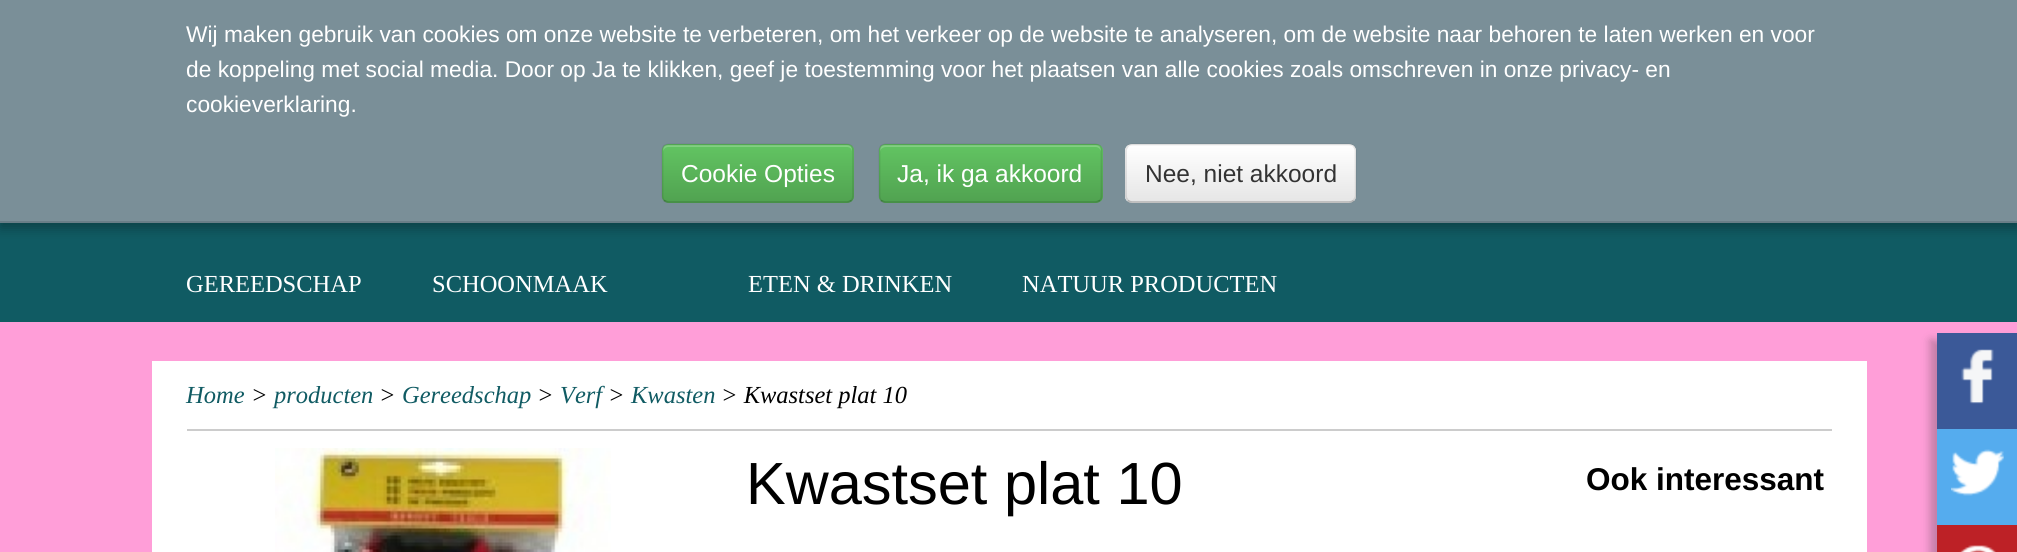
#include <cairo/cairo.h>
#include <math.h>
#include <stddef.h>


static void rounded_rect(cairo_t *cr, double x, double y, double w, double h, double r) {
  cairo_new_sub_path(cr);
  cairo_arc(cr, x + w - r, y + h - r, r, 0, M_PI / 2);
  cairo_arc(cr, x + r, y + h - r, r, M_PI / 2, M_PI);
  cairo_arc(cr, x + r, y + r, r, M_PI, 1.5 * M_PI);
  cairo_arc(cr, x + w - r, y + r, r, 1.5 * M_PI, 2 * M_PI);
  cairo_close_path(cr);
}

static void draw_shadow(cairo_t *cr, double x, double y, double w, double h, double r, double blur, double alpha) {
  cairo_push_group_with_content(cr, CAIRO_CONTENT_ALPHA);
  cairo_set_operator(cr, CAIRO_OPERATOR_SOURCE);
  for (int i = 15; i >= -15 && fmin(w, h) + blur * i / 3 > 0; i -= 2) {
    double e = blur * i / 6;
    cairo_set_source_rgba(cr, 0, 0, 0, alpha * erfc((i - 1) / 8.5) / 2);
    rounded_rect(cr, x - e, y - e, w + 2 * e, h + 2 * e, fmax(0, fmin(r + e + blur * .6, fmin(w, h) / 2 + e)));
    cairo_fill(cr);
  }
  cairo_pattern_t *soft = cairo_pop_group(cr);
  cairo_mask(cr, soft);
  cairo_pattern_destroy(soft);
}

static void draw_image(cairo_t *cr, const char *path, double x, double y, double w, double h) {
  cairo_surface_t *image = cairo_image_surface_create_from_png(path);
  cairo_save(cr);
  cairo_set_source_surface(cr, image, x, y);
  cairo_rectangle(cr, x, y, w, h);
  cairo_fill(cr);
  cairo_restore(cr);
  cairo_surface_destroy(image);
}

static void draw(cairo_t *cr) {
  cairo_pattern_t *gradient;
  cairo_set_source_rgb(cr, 1, 158 / 255.0, 216 / 255.0);
  cairo_paint(cr);
  cairo_set_source_rgb(cr, 16 / 255.0, 91 / 255.0, 99 / 255.0);
  cairo_rectangle(cr, 0, 223, 2017, 99);
  cairo_fill(cr);
  cairo_set_source_rgb(cr, 0, 0, 0);
  draw_shadow(cr, 0, 5, 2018, 223, 0, 6, 0.3);
  cairo_set_source_rgb(cr, 122 / 255.0, 143 / 255.0, 152 / 255.0);
  cairo_rectangle(cr, 0, 0, 2017, 221);
  cairo_fill(cr);
  cairo_set_source_rgb(cr, 105 / 255.0, 126 / 255.0, 135 / 255.0);
  cairo_rectangle(cr, 0, 221, 2017, 2);
  cairo_fill(cr);
  cairo_set_source_rgb(cr, 91 / 255.0, 183 / 255.0, 91 / 255.0);
  rounded_rect(cr, 662, 144, 192, 59, 7);
  cairo_fill(cr);
  cairo_save(cr);
  rounded_rect(cr, 662, 144, 192, 59, 7);
  cairo_clip(cr);
  gradient = cairo_pattern_create_linear(758, 145, 758, 201);
  cairo_pattern_add_color_stop_rgba(gradient, 0, 98 / 255.0, 196 / 255.0, 98 / 255.0, 1);
  cairo_pattern_add_color_stop_rgba(gradient, 1, 81 / 255.0, 163 / 255.0, 81 / 255.0, 1);
  cairo_set_source(cr, gradient);
  cairo_pattern_destroy(gradient);
  cairo_rectangle(cr, 662, 145, 192, 56);
  cairo_fill(cr);
  cairo_restore(cr);
  cairo_set_source_rgba(cr, 1, 1, 1, 0.2);
  cairo_new_path(cr);
  cairo_move_to(cr, 668, 147);
  cairo_line_to(cr, 847, 147);
  cairo_curve_to(cr, 850, 147, 852, 149, 852, 152);
  cairo_line_to(cr, 852, 150);
  cairo_curve_to(cr, 852, 147, 850, 145, 847, 145);
  cairo_line_to(cr, 668, 145);
  cairo_curve_to(cr, 665, 145, 663, 147, 663, 150);
  cairo_line_to(cr, 663, 152);
  cairo_curve_to(cr, 663, 149, 666, 147, 668, 147);
  cairo_close_path(cr);
  cairo_fill(cr);
  cairo_new_path(cr);
  cairo_move_to(cr, 851.5, 200.5);
  cairo_curve_to(cr, 850, 201.5, 848.5, 202, 847, 202);
  cairo_line_to(cr, 668.5, 202);
  cairo_curve_to(cr, 667, 202, 665.5, 201.5, 664, 200.5);
  cairo_set_source_rgba(cr, 0, 0, 0, 0.25);
  cairo_set_line_width(cr, 1.8);
  cairo_stroke(cr);
  cairo_new_path(cr);
  cairo_move_to(cr, 664, 200.5);
  cairo_curve_to(cr, 663, 199, 662.5, 197.5, 662.5, 196);
  cairo_line_to(cr, 662.5, 150.5);
  cairo_curve_to(cr, 662.5, 149, 663, 147.5, 664, 146);
  cairo_curve_to(cr, 665.5, 145, 667, 144.5, 668.5, 144.5);
  cairo_line_to(cr, 847, 144.5);
  cairo_curve_to(cr, 848.5, 144.5, 850, 145, 851.5, 146);
  cairo_curve_to(cr, 852.5, 147.5, 853, 149, 853, 150.5);
  cairo_line_to(cr, 853, 196);
  cairo_curve_to(cr, 853, 197.5, 852.5, 199, 851.5, 200.5);
  cairo_set_source_rgba(cr, 0, 0, 0, 0.1);
  cairo_stroke(cr);
  cairo_set_source_rgb(cr, 91 / 255.0, 183 / 255.0, 91 / 255.0);
  rounded_rect(cr, 879, 144, 224, 59, 7);
  cairo_fill(cr);
  cairo_save(cr);
  rounded_rect(cr, 879, 144, 224, 59, 7);
  cairo_clip(cr);
  gradient = cairo_pattern_create_linear(991, 145, 991, 201);
  cairo_pattern_add_color_stop_rgba(gradient, 0, 98 / 255.0, 196 / 255.0, 98 / 255.0, 1);
  cairo_pattern_add_color_stop_rgba(gradient, 1, 81 / 255.0, 163 / 255.0, 81 / 255.0, 1);
  cairo_set_source(cr, gradient);
  cairo_pattern_destroy(gradient);
  cairo_rectangle(cr, 879, 145, 224, 56);
  cairo_fill(cr);
  cairo_restore(cr);
  cairo_set_source_rgba(cr, 1, 1, 1, 0.2);
  cairo_new_path(cr);
  cairo_move_to(cr, 886, 147);
  cairo_line_to(cr, 1096, 147);
  cairo_curve_to(cr, 1098, 147, 1101, 149, 1101, 152);
  cairo_line_to(cr, 1101, 150);
  cairo_curve_to(cr, 1101, 147, 1099, 145, 1096, 145);
  cairo_line_to(cr, 885, 145);
  cairo_curve_to(cr, 882, 145, 880, 147, 880, 150);
  cairo_line_to(cr, 880, 152);
  cairo_curve_to(cr, 880, 149, 883, 147, 886, 147);
  cairo_close_path(cr);
  cairo_fill(cr);
  cairo_new_path(cr);
  cairo_move_to(cr, 1100, 200.5);
  cairo_curve_to(cr, 1098.5, 201.5, 1097, 202, 1095.5, 202);
  cairo_line_to(cr, 885.5, 202);
  cairo_curve_to(cr, 884, 202, 882.5, 201.5, 881, 200.5);
  cairo_set_source_rgba(cr, 0, 0, 0, 0.25);
  cairo_stroke(cr);
  cairo_new_path(cr);
  cairo_move_to(cr, 881, 200.5);
  cairo_curve_to(cr, 880, 199, 879.5, 197.5, 879.5, 196);
  cairo_line_to(cr, 879.5, 150.5);
  cairo_curve_to(cr, 879.5, 149, 880, 147.5, 881, 146);
  cairo_curve_to(cr, 882.5, 145, 884, 144.5, 885.5, 144.5);
  cairo_line_to(cr, 1095.5, 144.5);
  cairo_curve_to(cr, 1097, 144.5, 1098.5, 145, 1100, 146);
  cairo_curve_to(cr, 1101, 147.5, 1101.5, 149, 1101.5, 150.5);
  cairo_line_to(cr, 1101.5, 196);
  cairo_curve_to(cr, 1101.5, 197.5, 1101, 199, 1100, 200.5);
  cairo_set_source_rgba(cr, 0, 0, 0, 0.1);
  cairo_stroke(cr);
  cairo_set_source_rgb(cr, 245 / 255.0, 245 / 255.0, 245 / 255.0);
  rounded_rect(cr, 1125, 144, 231, 59, 7);
  cairo_fill(cr);
  cairo_save(cr);
  rounded_rect(cr, 1125, 144, 231, 59, 7);
  cairo_clip(cr);
  gradient = cairo_pattern_create_linear(1241, 145, 1241, 201);
  cairo_pattern_add_color_stop_rgba(gradient, 0, 1, 1, 1, 1);
  cairo_pattern_add_color_stop_rgba(gradient, 1, 230 / 255.0, 230 / 255.0, 230 / 255.0, 1);
  cairo_set_source(cr, gradient);
  cairo_pattern_destroy(gradient);
  cairo_rectangle(cr, 1125, 145, 231, 56);
  cairo_fill(cr);
  cairo_restore(cr);
  cairo_set_source_rgba(cr, 1, 1, 1, 0.2);
  cairo_new_path(cr);
  cairo_move_to(cr, 1132, 147);
  cairo_line_to(cr, 1349, 147);
  cairo_curve_to(cr, 1352, 147, 1354, 149, 1354, 152);
  cairo_line_to(cr, 1354, 199);
  cairo_curve_to(cr, 1355, 198, 1355, 197, 1355, 196);
  cairo_line_to(cr, 1355, 150);
  cairo_curve_to(cr, 1355, 147, 1353, 145, 1350, 145);
  cairo_line_to(cr, 1132, 145);
  cairo_curve_to(cr, 1129, 145, 1127, 147, 1127, 150);
  cairo_line_to(cr, 1127, 152);
  cairo_curve_to(cr, 1127, 149, 1129, 147, 1132, 147);
  cairo_close_path(cr);
  cairo_fill(cr);
  cairo_new_path(cr);
  cairo_move_to(cr, 1353.5, 200.5);
  cairo_curve_to(cr, 1352.5, 201.5, 1351, 202, 1349, 202);
  cairo_line_to(cr, 1132, 202);
  cairo_curve_to(cr, 1130.5, 202, 1129, 201.5, 1128, 200.5);
  cairo_set_source_rgba(cr, 0, 0, 0, 0.25);
  cairo_stroke(cr);
  cairo_new_path(cr);
  cairo_move_to(cr, 1128, 200.5);
  cairo_curve_to(cr, 1127, 199, 1126, 197.5, 1126, 196);
  cairo_line_to(cr, 1126, 150.5);
  cairo_curve_to(cr, 1126, 149, 1127, 147.5, 1128, 146);
  cairo_curve_to(cr, 1129, 145, 1130.5, 144.5, 1132, 144.5);
  cairo_line_to(cr, 1349, 144.5);
  cairo_curve_to(cr, 1351, 144.5, 1352.5, 145, 1353.5, 146);
  cairo_curve_to(cr, 1354.5, 147.5, 1355.5, 149, 1355.5, 150.5);
  cairo_line_to(cr, 1355.5, 196);
  cairo_curve_to(cr, 1355.5, 197.5, 1354.5, 199, 1353.5, 200.5);
  cairo_set_source_rgba(cr, 0, 0, 0, 0.1);
  cairo_stroke(cr);
  cairo_set_source_rgb(cr, 1, 1, 1);
  cairo_rectangle(cr, 152, 361, 1715, 191);
  cairo_fill(cr);
  cairo_set_source_rgb(cr, 204 / 255.0, 204 / 255.0, 204 / 255.0);
  cairo_rectangle(cr, 187, 429, 1645, 2);
  cairo_fill(cr);
  cairo_set_source_rgb(cr, 50 / 255.0, 50 / 255.0, 50 / 255.0);
  draw_shadow(cr, 1930, 340, 81, 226, 0, 4.5, 0.3);
  cairo_set_source_rgb(cr, 59 / 255.0, 89 / 255.0, 152 / 255.0);
  cairo_rectangle(cr, 1937, 333, 80, 96);
  cairo_fill(cr);
  draw_image(cr, "images/1.png", 1961, 349, 33, 55);
  cairo_set_source_rgb(cr, 85 / 255.0, 172 / 255.0, 238 / 255.0);
  cairo_rectangle(cr, 1937, 429, 80, 96);
  cairo_fill(cr);
  draw_image(cr, "images/2.png", 1951, 449, 53, 47);
  cairo_set_source_rgb(cr, 189 / 255.0, 33 / 255.0, 38 / 255.0);
  cairo_rectangle(cr, 1937, 525, 80, 27);
  cairo_fill(cr);
  draw_image(cr, "images/3.png", 1959, 545, 37, 7);
  draw_image(cr, "images/4.png", 275, 448, 336, 104);
  cairo_select_font_face(cr, "Liberation Sans", CAIRO_FONT_SLANT_NORMAL, CAIRO_FONT_WEIGHT_NORMAL);
  cairo_set_font_size(cr, 22.75);
  cairo_set_source_rgb(cr, 1, 1, 1);
  cairo_move_to(cr, 186, 42);
  cairo_show_text(cr, "Wij maken gebruik van cookies om onze website te verbeteren, om het verkeer op de website te analyseren, om de website naar behoren te laten werken en voor");
  cairo_move_to(cr, 186, 77);
  cairo_show_text(cr, "de koppeling met social media. Door op Ja te klikken, geef je toestemming voor het plaatsen van alle cookies zoals omschreven in onze privacy- en");
  cairo_move_to(cr, 186, 112);
  cairo_show_text(cr, "cookieverklaring.");
  cairo_set_font_size(cr, 24.5);
  cairo_move_to(cr, 681, 182);
  cairo_show_text(cr, "Cookie Opties");
  cairo_move_to(cr, 897, 182);
  cairo_show_text(cr, "Ja, ik ga akkoord");
  cairo_set_source_rgb(cr, 51 / 255.0, 51 / 255.0, 51 / 255.0);
  cairo_move_to(cr, 1145, 182);
  cairo_show_text(cr, "Nee, niet akkoord");
  cairo_select_font_face(cr, "Liberation Serif", CAIRO_FONT_SLANT_NORMAL, CAIRO_FONT_WEIGHT_NORMAL);
  cairo_set_source_rgb(cr, 1, 1, 1);
  cairo_move_to(cr, 186, 292);
  cairo_show_text(cr, "GEREEDSCHAP");
  cairo_move_to(cr, 432, 292);
  cairo_show_text(cr, "SCHOONMAAK");
  cairo_move_to(cr, 748, 292);
  cairo_show_text(cr, "ETEN & DRINKEN");
  cairo_move_to(cr, 1022, 292);
  cairo_show_text(cr, "NATUUR PRODUCTEN");
  cairo_select_font_face(cr, "Liberation Serif", CAIRO_FONT_SLANT_ITALIC, CAIRO_FONT_WEIGHT_NORMAL);
  cairo_set_source_rgb(cr, 16 / 255.0, 91 / 255.0, 99 / 255.0);
  cairo_move_to(cr, 186, 403);
  cairo_show_text(cr, "Home");
  cairo_set_source_rgb(cr, 0, 0, 0);
  cairo_move_to(cr, 251, 403);
  cairo_show_text(cr, ">");
  cairo_set_source_rgb(cr, 16 / 255.0, 91 / 255.0, 99 / 255.0);
  cairo_move_to(cr, 274, 403);
  cairo_show_text(cr, "producten");
  cairo_set_source_rgb(cr, 0, 0, 0);
  cairo_move_to(cr, 379, 403);
  cairo_show_text(cr, ">");
  cairo_set_source_rgb(cr, 16 / 255.0, 91 / 255.0, 99 / 255.0);
  cairo_move_to(cr, 402, 403);
  cairo_show_text(cr, "Gereedschap");
  cairo_set_source_rgb(cr, 0, 0, 0);
  cairo_move_to(cr, 537, 403);
  cairo_show_text(cr, ">");
  cairo_set_source_rgb(cr, 16 / 255.0, 91 / 255.0, 99 / 255.0);
  cairo_move_to(cr, 560, 403);
  cairo_show_text(cr, "Verf");
  cairo_set_source_rgb(cr, 0, 0, 0);
  cairo_move_to(cr, 608, 403);
  cairo_show_text(cr, ">");
  cairo_set_source_rgb(cr, 16 / 255.0, 91 / 255.0, 99 / 255.0);
  cairo_move_to(cr, 631, 403);
  cairo_show_text(cr, "Kwasten");
  cairo_set_source_rgb(cr, 0, 0, 0);
  cairo_move_to(cr, 721, 403);
  cairo_show_text(cr, "> Kwastset plat 10");
  cairo_select_font_face(cr, "Liberation Sans", CAIRO_FONT_SLANT_NORMAL, CAIRO_FONT_WEIGHT_NORMAL);
  cairo_set_font_size(cr, 59.5);
  cairo_move_to(cr, 746, 504);
  cairo_show_text(cr, "Kwastset plat 10");
  cairo_select_font_face(cr, "Liberation Sans", CAIRO_FONT_SLANT_NORMAL, CAIRO_FONT_WEIGHT_BOLD);
  cairo_set_font_size(cr, 31.5);
  cairo_move_to(cr, 1586, 490);
  cairo_show_text(cr, "Ook interessant");
}

int main(void) {
  cairo_surface_t *surface = cairo_image_surface_create(CAIRO_FORMAT_RGB24, 2017, 552);
  cairo_t *cr = cairo_create(surface);
  cairo_font_options_t *options = cairo_font_options_create();
  cairo_font_options_set_hint_metrics(options, CAIRO_HINT_METRICS_OFF);
  cairo_font_options_set_hint_style(options, CAIRO_HINT_STYLE_NONE);
  cairo_set_font_options(cr, options);
  cairo_set_miter_limit(cr, 4);
  draw(cr);
  cairo_surface_write_to_png(surface, "out.png");
  cairo_font_options_destroy(options);
  cairo_destroy(cr);
  cairo_surface_destroy(surface);
  return 0;
}
